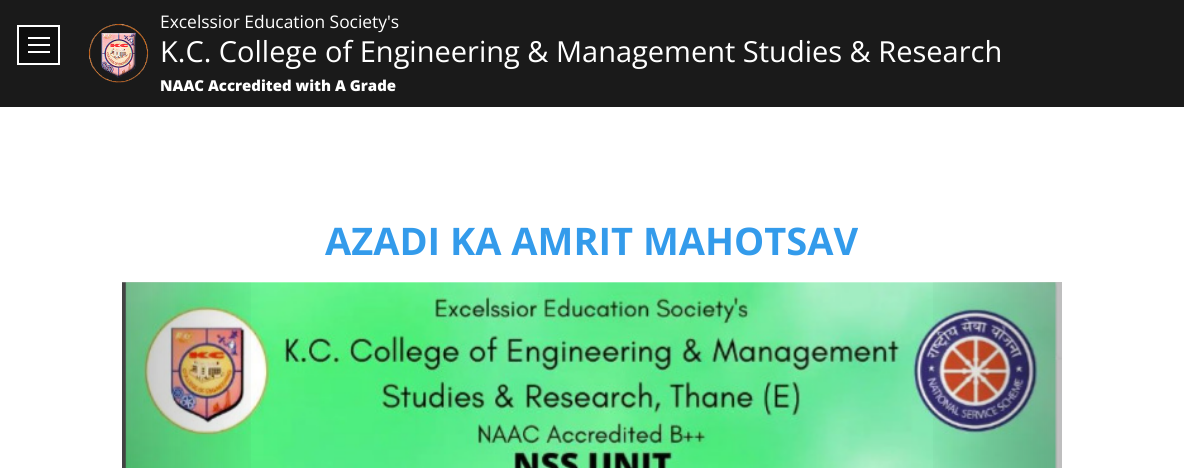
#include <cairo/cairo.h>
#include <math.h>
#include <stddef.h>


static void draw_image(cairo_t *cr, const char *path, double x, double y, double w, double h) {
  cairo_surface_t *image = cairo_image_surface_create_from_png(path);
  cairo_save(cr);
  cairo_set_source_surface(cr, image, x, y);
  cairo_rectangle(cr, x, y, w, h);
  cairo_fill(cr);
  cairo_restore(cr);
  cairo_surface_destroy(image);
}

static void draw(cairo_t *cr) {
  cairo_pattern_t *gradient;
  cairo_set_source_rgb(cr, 1, 1, 1);
  cairo_paint(cr);
  cairo_set_source_rgb(cr, 26 / 255.0, 26 / 255.0, 26 / 255.0);
  cairo_rectangle(cr, 0, 0, 1184, 107);
  cairo_fill(cr);
  cairo_set_source_rgb(cr, 13 / 255.0, 13 / 255.0, 13 / 255.0);
  cairo_rectangle(cr, 18, 26, 41, 38);
  cairo_fill_preserve(cr);
  cairo_set_source_rgb(cr, 1, 1, 1);
  cairo_stroke(cr);
  cairo_rectangle(cr, 28, 44, 22, 2);
  cairo_fill(cr);
  cairo_rectangle(cr, 28, 37, 22, 2);
  cairo_fill(cr);
  cairo_rectangle(cr, 28, 51, 22, 2);
  cairo_fill(cr);
  draw_image(cr, "images/1.png", 88, 23, 61, 60);
  draw_image(cr, "images/2.png", 122, 282, 940, 186);
  gradient = cairo_pattern_create_linear(122, 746, 263, 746);
  cairo_pattern_add_color_stop_rgba(gradient, 0, 0, 0, 0, 0.25);
  cairo_pattern_add_color_stop_rgba(gradient, 1, 0, 0, 0, 0);
  cairo_set_source(cr, gradient);
  cairo_pattern_destroy(gradient);
  cairo_rectangle(cr, 122, 282, 129, 186);
  cairo_fill(cr);
  gradient = cairo_pattern_create_linear(921, 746, 1062, 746);
  cairo_pattern_add_color_stop_rgba(gradient, 0, 0, 0, 0, 0);
  cairo_pattern_add_color_stop_rgba(gradient, 1, 0, 0, 0, 0.25);
  cairo_set_source(cr, gradient);
  cairo_pattern_destroy(gradient);
  cairo_rectangle(cr, 933, 282, 129, 186);
  cairo_fill(cr);
  cairo_select_font_face(cr, "Open Sans", CAIRO_FONT_SLANT_NORMAL, CAIRO_FONT_WEIGHT_NORMAL);
  cairo_set_font_size(cr, 17.4);
  cairo_set_source_rgb(cr, 1, 1, 1);
  cairo_move_to(cr, 160, 28);
  cairo_show_text(cr, "Excelssior Education Society's");
  cairo_set_font_size(cr, 29);
  cairo_move_to(cr, 160, 62);
  cairo_show_text(cr, "K.C. College of Engineering & Management Studies & Research");
  cairo_select_font_face(cr, "Open Sans ExtraBold", CAIRO_FONT_SLANT_NORMAL, CAIRO_FONT_WEIGHT_NORMAL);
  cairo_set_font_size(cr, 15);
  cairo_move_to(cr, 160, 91);
  cairo_show_text(cr, "NAAC Accredited with A Grade");
  cairo_select_font_face(cr, "Open Sans", CAIRO_FONT_SLANT_NORMAL, CAIRO_FONT_WEIGHT_BOLD);
  cairo_set_font_size(cr, 38);
  cairo_set_source_rgb(cr, 51 / 255.0, 155 / 255.0, 235 / 255.0);
  cairo_move_to(cr, 325, 255);
  cairo_show_text(cr, "AZADI KA AMRIT MAHOTSAV");
}

int main(void) {
  cairo_surface_t *surface = cairo_image_surface_create(CAIRO_FORMAT_RGB24, 1184, 468);
  cairo_t *cr = cairo_create(surface);
  cairo_font_options_t *options = cairo_font_options_create();
  cairo_font_options_set_hint_metrics(options, CAIRO_HINT_METRICS_OFF);
  cairo_font_options_set_hint_style(options, CAIRO_HINT_STYLE_NONE);
  cairo_set_font_options(cr, options);
  cairo_set_miter_limit(cr, 4);
  draw(cr);
  cairo_surface_write_to_png(surface, "out.png");
  cairo_font_options_destroy(options);
  cairo_destroy(cr);
  cairo_surface_destroy(surface);
  return 0;
}
